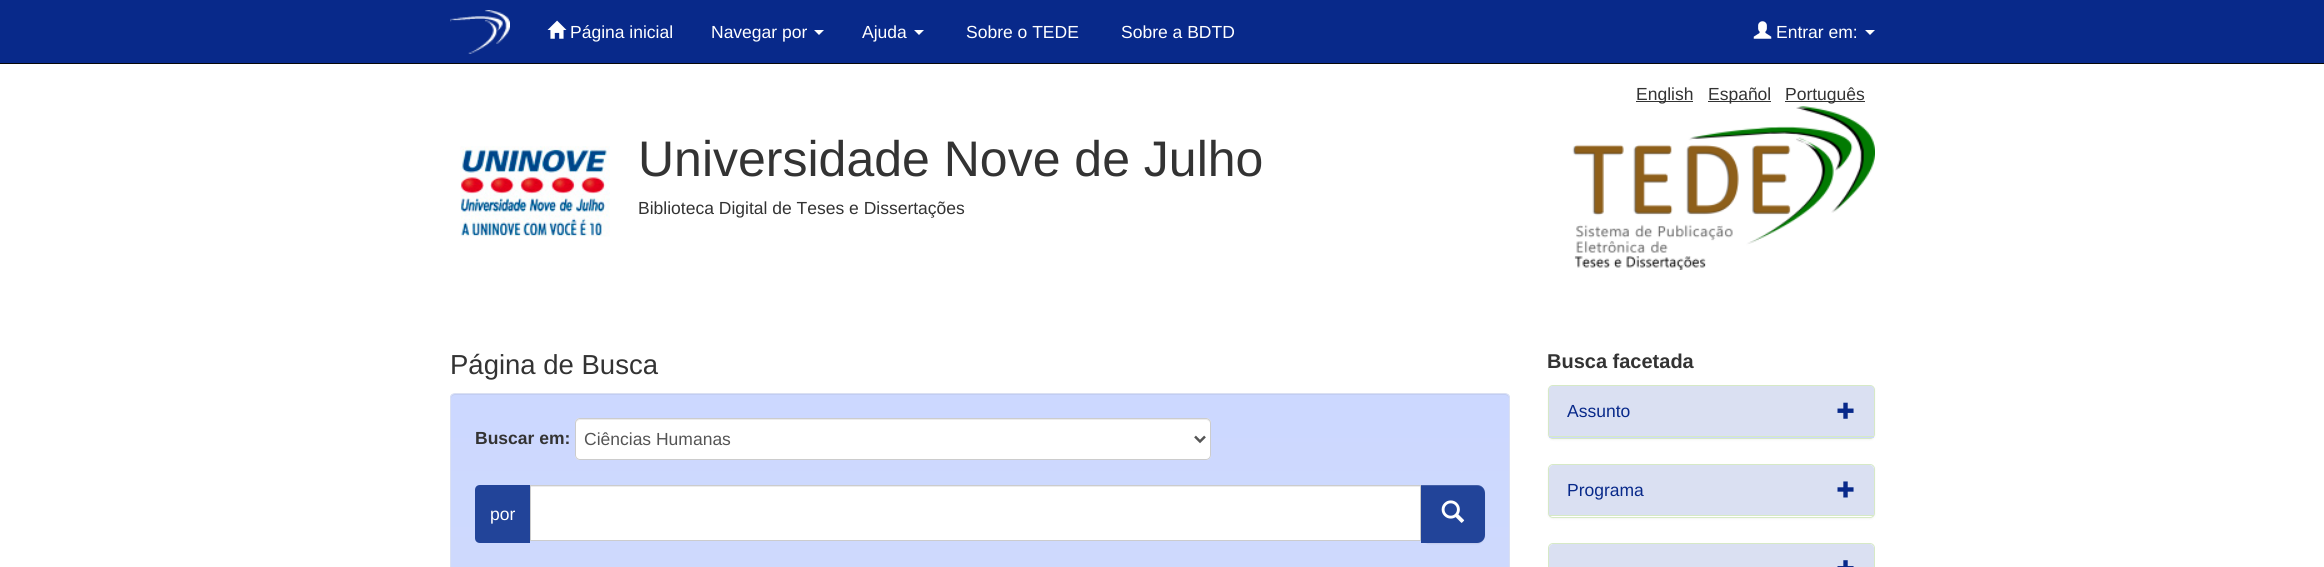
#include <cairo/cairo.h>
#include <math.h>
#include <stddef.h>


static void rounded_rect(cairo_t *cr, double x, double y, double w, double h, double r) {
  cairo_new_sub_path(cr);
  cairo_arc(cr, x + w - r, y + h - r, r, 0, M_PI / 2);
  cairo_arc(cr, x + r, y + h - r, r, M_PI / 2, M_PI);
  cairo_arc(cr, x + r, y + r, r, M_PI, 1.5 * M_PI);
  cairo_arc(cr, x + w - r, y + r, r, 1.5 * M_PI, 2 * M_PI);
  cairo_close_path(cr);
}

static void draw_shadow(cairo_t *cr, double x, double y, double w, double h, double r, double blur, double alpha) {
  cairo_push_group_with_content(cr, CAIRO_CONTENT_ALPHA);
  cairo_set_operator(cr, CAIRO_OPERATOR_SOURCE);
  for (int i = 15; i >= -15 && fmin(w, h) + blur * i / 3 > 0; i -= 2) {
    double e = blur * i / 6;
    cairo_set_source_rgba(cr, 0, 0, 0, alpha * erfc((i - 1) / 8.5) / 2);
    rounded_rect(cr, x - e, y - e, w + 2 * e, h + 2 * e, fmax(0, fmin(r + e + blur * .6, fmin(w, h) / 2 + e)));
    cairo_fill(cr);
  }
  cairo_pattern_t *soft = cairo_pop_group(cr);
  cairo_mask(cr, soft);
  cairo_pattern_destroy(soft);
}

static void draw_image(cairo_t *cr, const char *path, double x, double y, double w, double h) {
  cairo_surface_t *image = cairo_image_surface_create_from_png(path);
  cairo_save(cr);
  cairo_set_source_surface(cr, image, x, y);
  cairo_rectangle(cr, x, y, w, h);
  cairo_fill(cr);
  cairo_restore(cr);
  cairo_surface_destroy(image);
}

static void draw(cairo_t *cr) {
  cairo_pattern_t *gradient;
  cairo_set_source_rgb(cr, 1, 1, 1);
  cairo_paint(cr);
  cairo_set_source_rgb(cr, 8 / 255.0, 41 / 255.0, 138 / 255.0);
  cairo_rectangle(cr, 0, 0, 2324, 63);
  cairo_fill(cr);
  cairo_set_source_rgb(cr, 8 / 255.0, 8 / 255.0, 8 / 255.0);
  cairo_rectangle(cr, 0, 63, 2324, 1);
  cairo_fill(cr);
  draw_image(cr, "images/1.png", 450, 10, 60, 44);
  draw_image(cr, "images/2.png", 547, 20, 20, 19);
  cairo_set_source_rgb(cr, 1, 1, 1);
  cairo_new_path(cr);
  cairo_move_to(cr, 814, 30);
  cairo_line_to(cr, 824, 30);
  cairo_line_to(cr, 819, 35);
  cairo_close_path(cr);
  cairo_fill(cr);
  cairo_new_path(cr);
  cairo_move_to(cr, 914, 30);
  cairo_line_to(cr, 924, 30);
  cairo_line_to(cr, 919, 35);
  cairo_close_path(cr);
  cairo_fill(cr);
  draw_image(cr, "images/3.png", 1753, 21, 19, 18);
  cairo_new_path(cr);
  cairo_move_to(cr, 1865, 30);
  cairo_line_to(cr, 1875, 30);
  cairo_line_to(cr, 1870, 35);
  cairo_close_path(cr);
  cairo_fill(cr);
  cairo_set_source_rgb(cr, 51 / 255.0, 51 / 255.0, 51 / 255.0);
  cairo_rectangle(cr, 1636, 101, 57, 1);
  cairo_fill(cr);
  cairo_rectangle(cr, 1708, 101, 63, 1);
  cairo_fill(cr);
  cairo_rectangle(cr, 1785, 101, 80, 1);
  cairo_fill(cr);
  draw_image(cr, "images/4.png", 460, 146, 150, 91);
  draw_image(cr, "images/5.png", 1572, 106, 303, 164);
  cairo_save(cr);
  rounded_rect(cr, 450, 393, 1060, 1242, 5);
  cairo_clip(cr);
  gradient = cairo_pattern_create_linear(980, 394, 980, 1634);
  cairo_pattern_add_color_stop_rgba(gradient, 0, 204 / 255.0, 216 / 255.0, 1, 1);
  cairo_pattern_add_color_stop_rgba(gradient, 1, 218 / 255.0, 224 / 255.0, 242 / 255.0, 1);
  cairo_set_source(cr, gradient);
  cairo_pattern_destroy(gradient);
  cairo_rectangle(cr, 450, 394, 1060, 173);
  cairo_fill(cr);
  cairo_restore(cr);
  cairo_set_source_rgb(cr, 194 / 255.0, 205 / 255.0, 242 / 255.0);
  cairo_new_path(cr);
  cairo_move_to(cr, 455, 395);
  cairo_line_to(cr, 1505, 395);
  cairo_curve_to(cr, 1507, 395, 1509, 397, 1509, 399);
  cairo_curve_to(cr, 1509, 396, 1508, 394, 1505, 394);
  cairo_line_to(cr, 455, 394);
  cairo_curve_to(cr, 452, 394, 451, 396, 451, 399);
  cairo_curve_to(cr, 451, 397, 453, 395, 455, 395);
  cairo_close_path(cr);
  cairo_fill(cr);
  rounded_rect(cr, 450.5, 393.5, 1059, 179, 4.5);
  cairo_set_source_rgb(cr, 218 / 255.0, 224 / 255.0, 242 / 255.0);
  cairo_set_line_width(cr, 1);
  cairo_stroke(cr);
  cairo_set_source_rgb(cr, 1, 1, 1);
  rounded_rect(cr, 575, 418, 636, 42, 5);
  cairo_fill(cr);
  cairo_set_source_rgb(cr, 236 / 255.0, 236 / 255.0, 236 / 255.0);
  cairo_new_path(cr);
  cairo_move_to(cr, 580, 420);
  cairo_line_to(cr, 1206, 420);
  cairo_curve_to(cr, 1208, 420, 1210, 422, 1210, 424);
  cairo_curve_to(cr, 1210, 421, 1209, 419, 1206, 419);
  cairo_line_to(cr, 580, 419);
  cairo_curve_to(cr, 577, 419, 576, 421, 576, 424);
  cairo_curve_to(cr, 576, 422, 578, 420, 580, 420);
  cairo_close_path(cr);
  cairo_fill(cr);
  rounded_rect(cr, 575.5, 418.5, 635, 41, 4.5);
  cairo_set_source_rgb(cr, 204 / 255.0, 204 / 255.0, 204 / 255.0);
  cairo_stroke(cr);
  cairo_new_path(cr);
  cairo_move_to(cr, 1195, 436.5);
  cairo_line_to(cr, 1200, 441.5);
  cairo_line_to(cr, 1205, 436.5);
  cairo_set_source_rgb(cr, 85 / 255.0, 85 / 255.0, 85 / 255.0);
  cairo_set_line_width(cr, 2.5);
  cairo_stroke(cr);
  cairo_set_source_rgb(cr, 34 / 255.0, 68 / 255.0, 153 / 255.0);
  cairo_new_path(cr);
  cairo_move_to(cr, 480, 485);
  cairo_line_to(cr, 530, 485);
  cairo_line_to(cr, 530, 543);
  cairo_line_to(cr, 480, 543);
  cairo_curve_to(cr, 477, 543, 475, 541, 475, 538);
  cairo_line_to(cr, 475, 490);
  cairo_curve_to(cr, 475, 487, 477, 485, 480, 485);
  cairo_close_path(cr);
  cairo_fill(cr);
  cairo_set_source_rgb(cr, 1, 1, 1);
  cairo_rectangle(cr, 531, 487, 889, 53);
  cairo_fill(cr);
  cairo_set_source_rgb(cr, 236 / 255.0, 236 / 255.0, 236 / 255.0);
  cairo_rectangle(cr, 531, 486, 889, 1);
  cairo_fill(cr);
  cairo_rectangle(cr, 530.5, 485.5, 890, 55);
  cairo_set_source_rgb(cr, 204 / 255.0, 204 / 255.0, 204 / 255.0);
  cairo_set_line_width(cr, 1);
  cairo_stroke(cr);
  cairo_set_source_rgb(cr, 0, 0, 0);
  draw_shadow(cr, 1421, 486, 64, 58, 8, 0.5, 0.07);
  cairo_set_source_rgb(cr, 34 / 255.0, 68 / 255.0, 153 / 255.0);
  cairo_new_path(cr);
  cairo_move_to(cr, 1421, 485);
  cairo_line_to(cr, 1477, 485);
  cairo_curve_to(cr, 1481.5, 485, 1485, 488.5, 1485, 493);
  cairo_line_to(cr, 1485, 535);
  cairo_curve_to(cr, 1485, 539.5, 1481.5, 543, 1477, 543);
  cairo_line_to(cr, 1421, 543);
  cairo_close_path(cr);
  cairo_fill(cr);
  cairo_set_source_rgba(cr, 1, 1, 1, 0.15);
  cairo_new_path(cr);
  cairo_move_to(cr, 1421, 486);
  cairo_line_to(cr, 1478, 486);
  cairo_curve_to(cr, 1482, 486, 1485, 490, 1485, 494);
  cairo_line_to(cr, 1485, 493);
  cairo_curve_to(cr, 1485, 489, 1481, 485, 1477, 485);
  cairo_line_to(cr, 1421, 485);
  cairo_close_path(cr);
  cairo_fill(cr);
  draw_image(cr, "images/6.png", 1441, 500, 24, 23);
  cairo_set_source_rgb(cr, 0, 0, 0);
  draw_shadow(cr, 1548, 386, 327, 54, 5, 1, 0.05);
  rounded_rect(cr, 1548.5, 385.5, 326, 53, 4.5);
  cairo_set_source_rgb(cr, 214 / 255.0, 233 / 255.0, 198 / 255.0);
  cairo_stroke(cr);
  cairo_set_source_rgb(cr, 204 / 255.0, 216 / 255.0, 1);
  cairo_new_path(cr);
  cairo_move_to(cr, 1553, 386);
  cairo_line_to(cr, 1870, 386);
  cairo_curve_to(cr, 1872, 386, 1874, 388, 1874, 390);
  cairo_line_to(cr, 1874, 438);
  cairo_line_to(cr, 1549, 438);
  cairo_line_to(cr, 1549, 390);
  cairo_curve_to(cr, 1549, 388, 1551, 386, 1553, 386);
  cairo_close_path(cr);
  cairo_fill(cr);
  cairo_set_source_rgb(cr, 218 / 255.0, 224 / 255.0, 242 / 255.0);
  cairo_new_path(cr);
  cairo_move_to(cr, 1553, 386);
  cairo_line_to(cr, 1870, 386);
  cairo_curve_to(cr, 1872, 386, 1874, 388, 1874, 390);
  cairo_line_to(cr, 1874, 436);
  cairo_line_to(cr, 1549, 436);
  cairo_line_to(cr, 1549, 390);
  cairo_curve_to(cr, 1549, 388, 1551, 386, 1553, 386);
  cairo_close_path(cr);
  cairo_fill(cr);
  cairo_set_source_rgb(cr, 214 / 255.0, 233 / 255.0, 198 / 255.0);
  cairo_rectangle(cr, 1549, 436, 325, 1);
  cairo_fill(cr);
  draw_image(cr, "images/7.png", 1837, 402, 17, 17);
  cairo_set_source_rgb(cr, 0, 0, 0);
  draw_shadow(cr, 1548, 465, 327, 54, 5, 1, 0.05);
  cairo_set_source_rgb(cr, 1, 1, 1);
  rounded_rect(cr, 1548.5, 464.5, 326, 53, 4.5);
  cairo_fill_preserve(cr);
  cairo_set_source_rgb(cr, 214 / 255.0, 233 / 255.0, 198 / 255.0);
  cairo_stroke(cr);
  cairo_set_source_rgb(cr, 218 / 255.0, 224 / 255.0, 242 / 255.0);
  cairo_new_path(cr);
  cairo_move_to(cr, 1553, 465);
  cairo_line_to(cr, 1870, 465);
  cairo_curve_to(cr, 1872, 465, 1874, 467, 1874, 469);
  cairo_line_to(cr, 1874, 515);
  cairo_line_to(cr, 1549, 515);
  cairo_line_to(cr, 1549, 469);
  cairo_curve_to(cr, 1549, 467, 1551, 465, 1553, 465);
  cairo_close_path(cr);
  cairo_fill(cr);
  cairo_set_source_rgb(cr, 214 / 255.0, 233 / 255.0, 198 / 255.0);
  cairo_rectangle(cr, 1549, 515, 325, 1);
  cairo_fill(cr);
  draw_image(cr, "images/8.png", 1837, 481, 17, 17);
  rounded_rect(cr, 1548.5, 543.5, 326, 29, 4.5);
  cairo_stroke(cr);
  cairo_set_source_rgb(cr, 218 / 255.0, 224 / 255.0, 242 / 255.0);
  cairo_new_path(cr);
  cairo_move_to(cr, 1553, 544);
  cairo_line_to(cr, 1870, 544);
  cairo_curve_to(cr, 1872, 544, 1874, 546, 1874, 548);
  cairo_line_to(cr, 1874, 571);
  cairo_line_to(cr, 1549, 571);
  cairo_line_to(cr, 1549, 548);
  cairo_curve_to(cr, 1549, 546, 1551, 544, 1553, 544);
  cairo_close_path(cr);
  cairo_fill(cr);
  draw_image(cr, "images/9.png", 1837, 560, 17, 7);
  cairo_select_font_face(cr, "Liberation Sans", CAIRO_FONT_SLANT_NORMAL, CAIRO_FONT_WEIGHT_NORMAL);
  cairo_set_font_size(cr, 17.5);
  cairo_set_source_rgb(cr, 1, 1, 1);
  cairo_move_to(cr, 570, 38);
  cairo_show_text(cr, "Página inicial");
  cairo_move_to(cr, 711, 38);
  cairo_show_text(cr, "Navegar por");
  cairo_move_to(cr, 862, 38);
  cairo_show_text(cr, "Ajuda");
  cairo_move_to(cr, 966, 38);
  cairo_show_text(cr, "Sobre o TEDE");
  cairo_move_to(cr, 1121, 38);
  cairo_show_text(cr, "Sobre a BDTD");
  cairo_move_to(cr, 1776, 38);
  cairo_show_text(cr, "Entrar em:");
  cairo_set_source_rgb(cr, 51 / 255.0, 51 / 255.0, 51 / 255.0);
  cairo_move_to(cr, 1636, 100);
  cairo_show_text(cr, "English");
  cairo_move_to(cr, 1708, 100);
  cairo_show_text(cr, "Español");
  cairo_move_to(cr, 1785, 100);
  cairo_show_text(cr, "Português");
  cairo_set_font_size(cr, 50);
  cairo_move_to(cr, 638, 176);
  cairo_show_text(cr, "Universidade Nove de Julho");
  cairo_set_font_size(cr, 17.5);
  cairo_move_to(cr, 638, 214);
  cairo_show_text(cr, "Biblioteca Digital de Teses e Dissertações");
  cairo_set_font_size(cr, 27.5);
  cairo_move_to(cr, 450, 374);
  cairo_show_text(cr, "Página de Busca");
  cairo_select_font_face(cr, "Liberation Sans", CAIRO_FONT_SLANT_NORMAL, CAIRO_FONT_WEIGHT_BOLD);
  cairo_set_font_size(cr, 17.5);
  cairo_move_to(cr, 475, 444);
  cairo_show_text(cr, "Buscar em:");
  cairo_select_font_face(cr, "Liberation Sans", CAIRO_FONT_SLANT_NORMAL, CAIRO_FONT_WEIGHT_NORMAL);
  cairo_set_source_rgb(cr, 85 / 255.0, 85 / 255.0, 85 / 255.0);
  cairo_move_to(cr, 584, 445);
  cairo_show_text(cr, "Ciências Humanas");
  cairo_set_source_rgb(cr, 1, 1, 1);
  cairo_move_to(cr, 490, 520);
  cairo_show_text(cr, "por");
  cairo_select_font_face(cr, "Liberation Sans", CAIRO_FONT_SLANT_NORMAL, CAIRO_FONT_WEIGHT_BOLD);
  cairo_set_font_size(cr, 20);
  cairo_set_source_rgb(cr, 51 / 255.0, 51 / 255.0, 51 / 255.0);
  cairo_move_to(cr, 1547, 368);
  cairo_show_text(cr, "Busca facetada");
  cairo_select_font_face(cr, "Liberation Sans", CAIRO_FONT_SLANT_NORMAL, CAIRO_FONT_WEIGHT_NORMAL);
  cairo_set_font_size(cr, 17.5);
  cairo_set_source_rgb(cr, 8 / 255.0, 41 / 255.0, 138 / 255.0);
  cairo_move_to(cr, 1567, 417);
  cairo_show_text(cr, "Assunto");
  cairo_move_to(cr, 1567, 496);
  cairo_show_text(cr, "Programa");
}

int main(void) {
  cairo_surface_t *surface = cairo_image_surface_create(CAIRO_FORMAT_RGB24, 2324, 567);
  cairo_t *cr = cairo_create(surface);
  cairo_font_options_t *options = cairo_font_options_create();
  cairo_font_options_set_hint_metrics(options, CAIRO_HINT_METRICS_OFF);
  cairo_font_options_set_hint_style(options, CAIRO_HINT_STYLE_NONE);
  cairo_set_font_options(cr, options);
  cairo_set_miter_limit(cr, 4);
  draw(cr);
  cairo_surface_write_to_png(surface, "out.png");
  cairo_font_options_destroy(options);
  cairo_destroy(cr);
  cairo_surface_destroy(surface);
  return 0;
}
